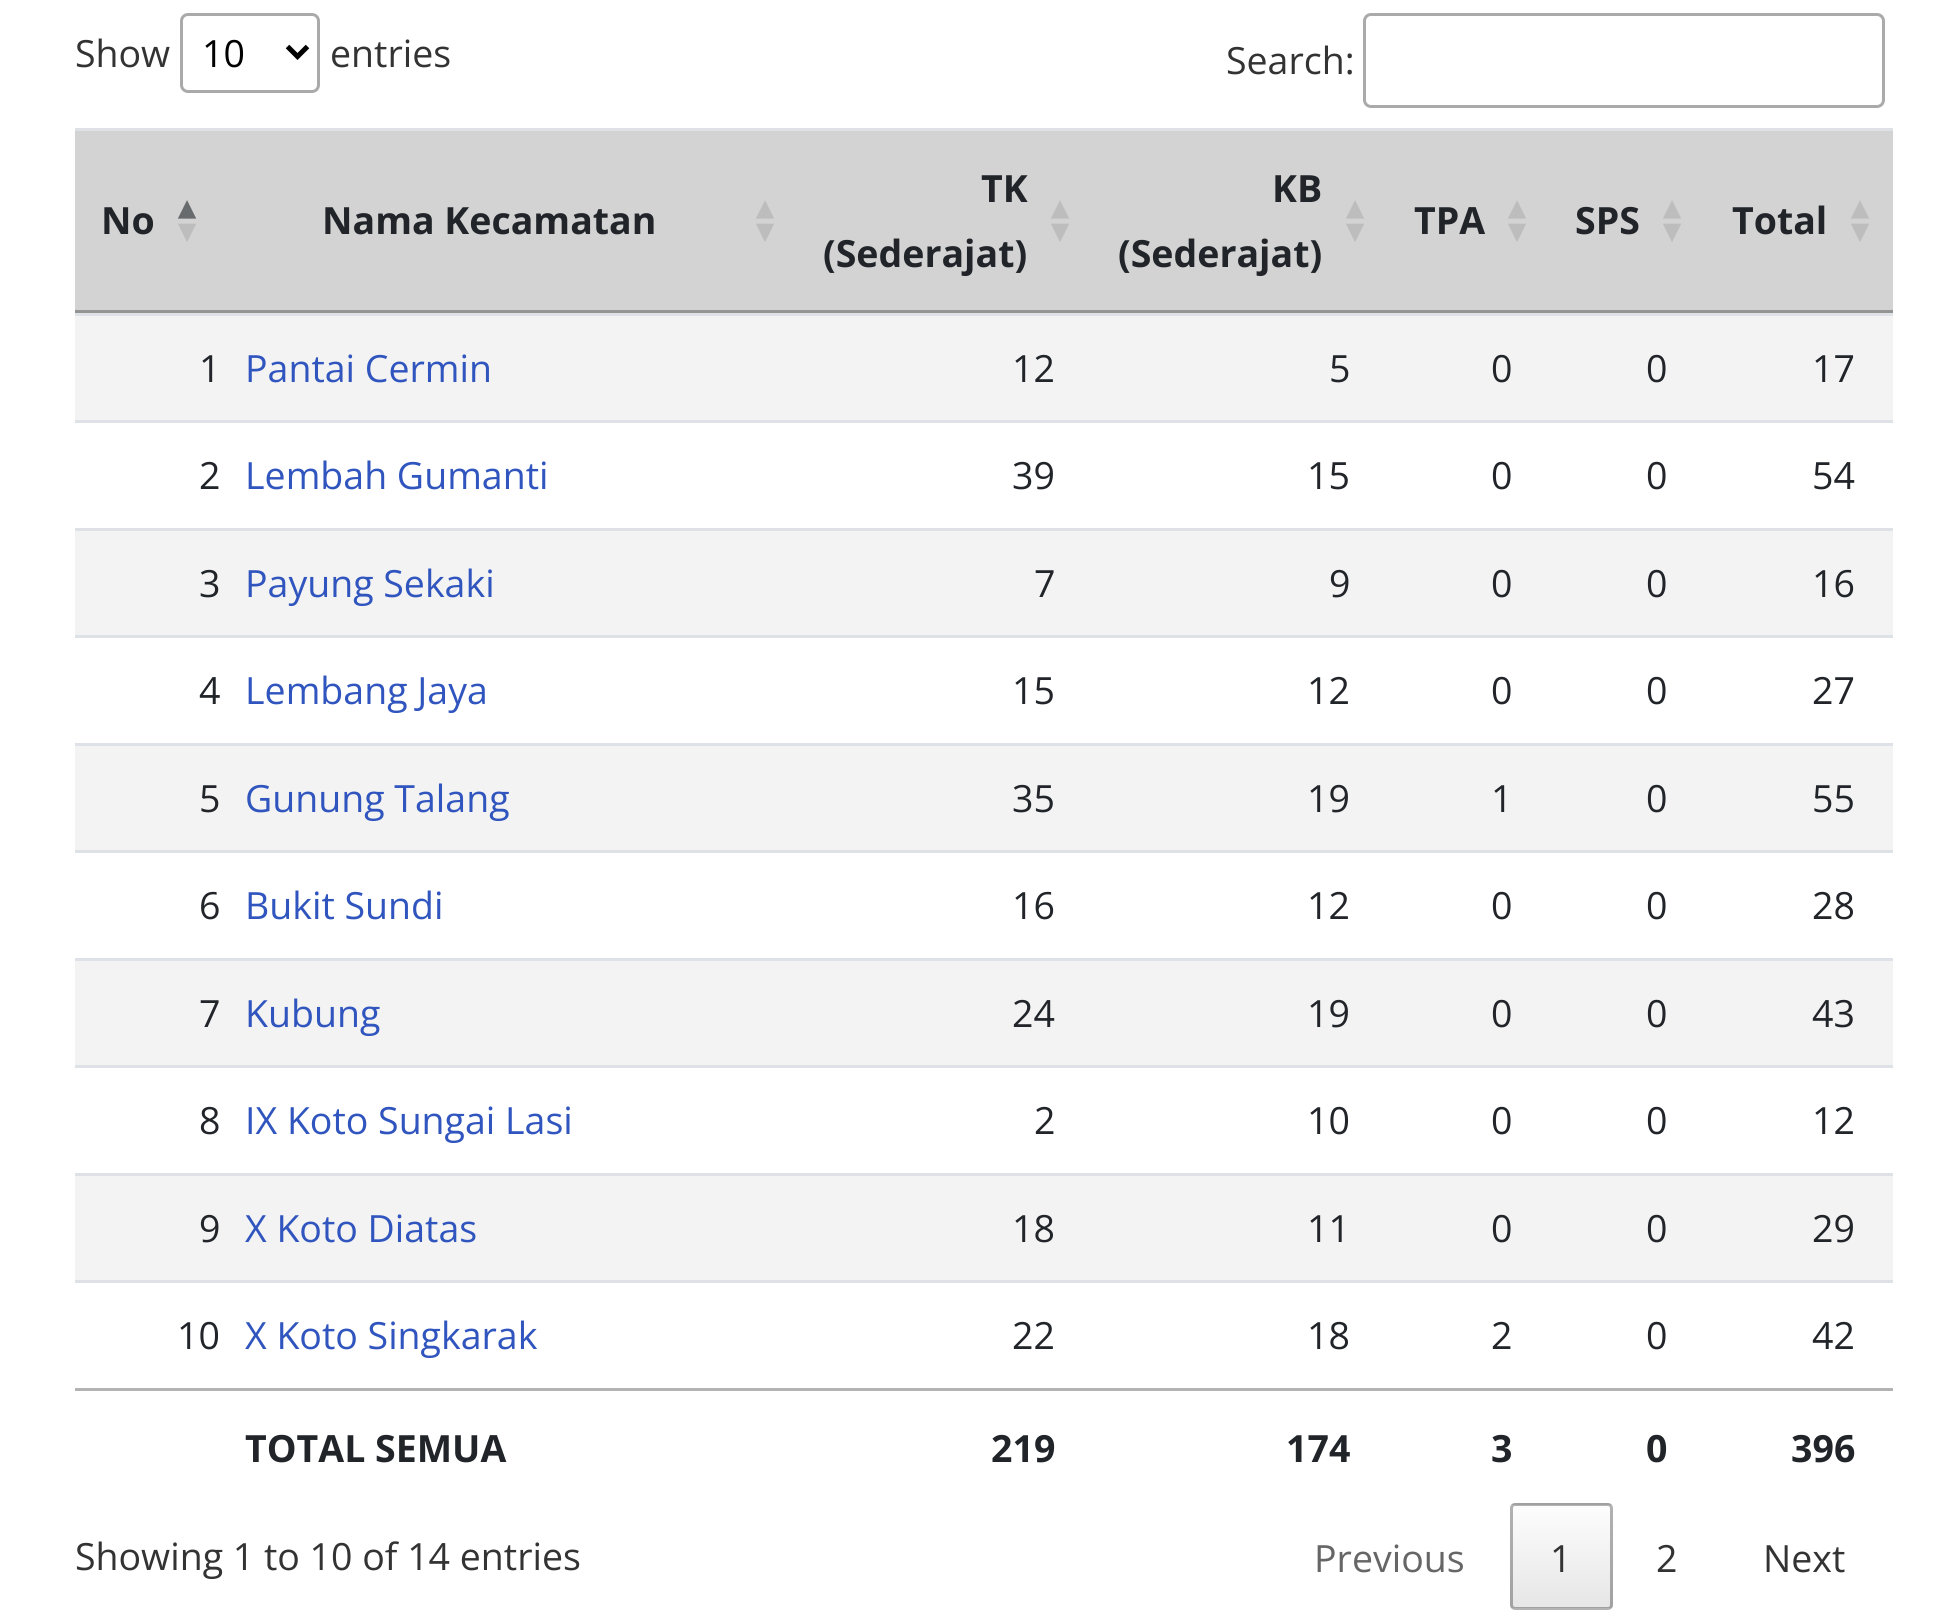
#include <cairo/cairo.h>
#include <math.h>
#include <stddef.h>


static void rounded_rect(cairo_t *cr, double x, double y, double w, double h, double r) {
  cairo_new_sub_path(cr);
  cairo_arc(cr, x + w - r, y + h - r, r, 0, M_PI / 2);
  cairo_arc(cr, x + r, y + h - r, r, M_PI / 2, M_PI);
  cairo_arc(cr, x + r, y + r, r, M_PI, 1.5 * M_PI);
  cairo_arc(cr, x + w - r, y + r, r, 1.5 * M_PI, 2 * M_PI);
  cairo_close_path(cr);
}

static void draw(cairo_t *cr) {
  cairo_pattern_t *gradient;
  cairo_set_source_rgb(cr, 1, 1, 1);
  cairo_paint(cr);
  rounded_rect(cr, 181.5, 14.5, 137, 77, 6.5);
  cairo_set_source_rgb(cr, 170 / 255.0, 170 / 255.0, 170 / 255.0);
  cairo_set_line_width(cr, 3);
  cairo_stroke(cr);
  cairo_new_path(cr);
  cairo_move_to(cr, 287.5, 46.5);
  cairo_line_to(cr, 297.5, 56.5);
  cairo_line_to(cr, 307.5, 46.5);
  cairo_set_source_rgb(cr, 0, 0, 0);
  cairo_set_line_width(cr, 5);
  cairo_stroke(cr);
  rounded_rect(cr, 1364.5, 14.5, 519, 92, 6.5);
  cairo_set_source_rgb(cr, 170 / 255.0, 170 / 255.0, 170 / 255.0);
  cairo_set_line_width(cr, 3);
  cairo_stroke(cr);
  cairo_set_source_rgb(cr, 211 / 255.0, 211 / 255.0, 211 / 255.0);
  cairo_rectangle(cr, 75, 131, 1818, 179);
  cairo_fill(cr);
  cairo_set_source_rgb(cr, 222 / 255.0, 226 / 255.0, 230 / 255.0);
  cairo_rectangle(cr, 75, 128, 1818, 3);
  cairo_fill(cr);
  cairo_set_source_rgb(cr, 148 / 255.0, 148 / 255.0, 148 / 255.0);
  cairo_rectangle(cr, 75, 310, 1818, 3);
  cairo_fill(cr);
  cairo_set_source_rgb(cr, 243 / 255.0, 243 / 255.0, 243 / 255.0);
  cairo_rectangle(cr, 75, 316, 1818, 104);
  cairo_fill(cr);
  cairo_set_source_rgb(cr, 222 / 255.0, 226 / 255.0, 230 / 255.0);
  cairo_rectangle(cr, 75, 313, 1818, 3);
  cairo_fill(cr);
  cairo_rectangle(cr, 75, 420, 1818, 3);
  cairo_fill(cr);
  cairo_set_source_rgb(cr, 243 / 255.0, 243 / 255.0, 243 / 255.0);
  cairo_rectangle(cr, 75, 531, 1818, 104);
  cairo_fill(cr);
  cairo_set_source_rgb(cr, 222 / 255.0, 226 / 255.0, 230 / 255.0);
  cairo_rectangle(cr, 75, 528, 1818, 3);
  cairo_fill(cr);
  cairo_rectangle(cr, 75, 635, 1818, 3);
  cairo_fill(cr);
  cairo_set_source_rgb(cr, 243 / 255.0, 243 / 255.0, 243 / 255.0);
  cairo_rectangle(cr, 75, 746, 1818, 104);
  cairo_fill(cr);
  cairo_set_source_rgb(cr, 222 / 255.0, 226 / 255.0, 230 / 255.0);
  cairo_rectangle(cr, 75, 743, 1818, 3);
  cairo_fill(cr);
  cairo_rectangle(cr, 75, 850, 1818, 3);
  cairo_fill(cr);
  cairo_set_source_rgb(cr, 243 / 255.0, 243 / 255.0, 243 / 255.0);
  cairo_rectangle(cr, 75, 961, 1818, 104);
  cairo_fill(cr);
  cairo_set_source_rgb(cr, 222 / 255.0, 226 / 255.0, 230 / 255.0);
  cairo_rectangle(cr, 75, 958, 1818, 3);
  cairo_fill(cr);
  cairo_rectangle(cr, 75, 1065, 1818, 3);
  cairo_fill(cr);
  cairo_set_source_rgb(cr, 243 / 255.0, 243 / 255.0, 243 / 255.0);
  cairo_rectangle(cr, 75, 1176, 1818, 104);
  cairo_fill(cr);
  cairo_set_source_rgb(cr, 222 / 255.0, 226 / 255.0, 230 / 255.0);
  cairo_rectangle(cr, 75, 1173, 1818, 3);
  cairo_fill(cr);
  cairo_rectangle(cr, 75, 1280, 1818, 3);
  cairo_fill(cr);
  cairo_set_source_rgb(cr, 179 / 255.0, 179 / 255.0, 179 / 255.0);
  cairo_rectangle(cr, 75, 1388, 1818, 3);
  cairo_fill(cr);
  cairo_save(cr);
  rounded_rect(cr, 1510, 1503, 103, 107, 5);
  cairo_clip(cr);
  gradient = cairo_pattern_create_linear(1561, 1403, 1561, 1505);
  cairo_pattern_add_color_stop_rgba(gradient, 0, 253 / 255.0, 253 / 255.0, 253 / 255.0, 1);
  cairo_pattern_add_color_stop_rgba(gradient, 1, 230 / 255.0, 230 / 255.0, 230 / 255.0, 1);
  cairo_set_source(cr, gradient);
  cairo_pattern_destroy(gradient);
  cairo_rectangle(cr, 1510, 1503, 103, 2);
  cairo_fill(cr);
  gradient = cairo_pattern_create_linear(1561, 1505, 1561, 1608);
  cairo_pattern_add_color_stop_rgba(gradient, 0, 253 / 255.0, 253 / 255.0, 253 / 255.0, 1);
  cairo_pattern_add_color_stop_rgba(gradient, 1, 230 / 255.0, 230 / 255.0, 230 / 255.0, 1);
  cairo_set_source(cr, gradient);
  cairo_pattern_destroy(gradient);
  cairo_rectangle(cr, 1510, 1505, 103, 103);
  cairo_fill(cr);
  cairo_restore(cr);
  rounded_rect(cr, 1511.5, 1504.5, 100, 104, 3.5);
  cairo_set_source_rgba(cr, 0, 0, 0, 0.3);
  cairo_stroke(cr);
  cairo_select_font_face(cr, "Open Sans", CAIRO_FONT_SLANT_NORMAL, CAIRO_FONT_WEIGHT_NORMAL);
  cairo_set_font_size(cr, 37.5);
  cairo_set_source_rgb(cr, 51 / 255.0, 51 / 255.0, 51 / 255.0);
  cairo_move_to(cr, 75, 67);
  cairo_show_text(cr, "Show");
  cairo_set_source_rgb(cr, 0, 0, 0);
  cairo_move_to(cr, 202, 67);
  cairo_show_text(cr, "10");
  cairo_set_source_rgb(cr, 51 / 255.0, 51 / 255.0, 51 / 255.0);
  cairo_move_to(cr, 330, 67);
  cairo_show_text(cr, "entries");
  cairo_move_to(cr, 1226, 74);
  cairo_show_text(cr, "Search:");
  cairo_select_font_face(cr, "Open Sans", CAIRO_FONT_SLANT_NORMAL, CAIRO_FONT_WEIGHT_BOLD);
  cairo_set_source_rgb(cr, 33 / 255.0, 37 / 255.0, 41 / 255.0);
  cairo_move_to(cr, 101, 234);
  cairo_show_text(cr, "No");
  cairo_select_font_face(cr, "DejaVu Sans", CAIRO_FONT_SLANT_NORMAL, CAIRO_FONT_WEIGHT_BOLD);
  cairo_set_font_size(cr, 34);
  cairo_set_source_rgb(cr, 104 / 255.0, 107 / 255.0, 109 / 255.0);
  cairo_move_to(cr, 178, 219);
  cairo_show_text(cr, "▴");
  cairo_set_source_rgb(cr, 189 / 255.0, 189 / 255.0, 190 / 255.0);
  cairo_move_to(cr, 178, 242);
  cairo_show_text(cr, "▾");
  cairo_select_font_face(cr, "Open Sans", CAIRO_FONT_SLANT_NORMAL, CAIRO_FONT_WEIGHT_BOLD);
  cairo_set_font_size(cr, 37.5);
  cairo_set_source_rgb(cr, 33 / 255.0, 37 / 255.0, 41 / 255.0);
  cairo_move_to(cr, 322, 234);
  cairo_show_text(cr, "Nama Kecamatan");
  cairo_select_font_face(cr, "DejaVu Sans", CAIRO_FONT_SLANT_NORMAL, CAIRO_FONT_WEIGHT_BOLD);
  cairo_set_font_size(cr, 34);
  cairo_set_source_rgb(cr, 189 / 255.0, 189 / 255.0, 190 / 255.0);
  cairo_move_to(cr, 756, 219);
  cairo_show_text(cr, "▴");
  cairo_move_to(cr, 756, 242);
  cairo_show_text(cr, "▾");
  cairo_select_font_face(cr, "Open Sans", CAIRO_FONT_SLANT_NORMAL, CAIRO_FONT_WEIGHT_BOLD);
  cairo_set_font_size(cr, 37.5);
  cairo_set_source_rgb(cr, 33 / 255.0, 37 / 255.0, 41 / 255.0);
  cairo_move_to(cr, 981, 202);
  cairo_show_text(cr, "TK");
  cairo_select_font_face(cr, "DejaVu Sans", CAIRO_FONT_SLANT_NORMAL, CAIRO_FONT_WEIGHT_BOLD);
  cairo_set_font_size(cr, 34);
  cairo_set_source_rgb(cr, 189 / 255.0, 189 / 255.0, 190 / 255.0);
  cairo_move_to(cr, 1051, 219);
  cairo_show_text(cr, "▴");
  cairo_move_to(cr, 1051, 242);
  cairo_show_text(cr, "▾");
  cairo_select_font_face(cr, "Open Sans", CAIRO_FONT_SLANT_NORMAL, CAIRO_FONT_WEIGHT_BOLD);
  cairo_set_font_size(cr, 37.5);
  cairo_set_source_rgb(cr, 33 / 255.0, 37 / 255.0, 41 / 255.0);
  cairo_move_to(cr, 823, 267);
  cairo_show_text(cr, "(Sederajat)");
  cairo_move_to(cr, 1272, 202);
  cairo_show_text(cr, "KB");
  cairo_select_font_face(cr, "DejaVu Sans", CAIRO_FONT_SLANT_NORMAL, CAIRO_FONT_WEIGHT_BOLD);
  cairo_set_font_size(cr, 34);
  cairo_set_source_rgb(cr, 189 / 255.0, 189 / 255.0, 190 / 255.0);
  cairo_move_to(cr, 1346, 219);
  cairo_show_text(cr, "▴");
  cairo_move_to(cr, 1346, 242);
  cairo_show_text(cr, "▾");
  cairo_select_font_face(cr, "Open Sans", CAIRO_FONT_SLANT_NORMAL, CAIRO_FONT_WEIGHT_BOLD);
  cairo_set_font_size(cr, 37.5);
  cairo_set_source_rgb(cr, 33 / 255.0, 37 / 255.0, 41 / 255.0);
  cairo_move_to(cr, 1118, 267);
  cairo_show_text(cr, "(Sederajat)");
  cairo_move_to(cr, 1414, 234);
  cairo_show_text(cr, "TPA");
  cairo_select_font_face(cr, "DejaVu Sans", CAIRO_FONT_SLANT_NORMAL, CAIRO_FONT_WEIGHT_BOLD);
  cairo_set_font_size(cr, 34);
  cairo_set_source_rgb(cr, 189 / 255.0, 189 / 255.0, 190 / 255.0);
  cairo_move_to(cr, 1508, 219);
  cairo_show_text(cr, "▴");
  cairo_move_to(cr, 1508, 242);
  cairo_show_text(cr, "▾");
  cairo_select_font_face(cr, "Open Sans", CAIRO_FONT_SLANT_NORMAL, CAIRO_FONT_WEIGHT_BOLD);
  cairo_set_font_size(cr, 37.5);
  cairo_set_source_rgb(cr, 33 / 255.0, 37 / 255.0, 41 / 255.0);
  cairo_move_to(cr, 1575, 234);
  cairo_show_text(cr, "SPS");
  cairo_select_font_face(cr, "DejaVu Sans", CAIRO_FONT_SLANT_NORMAL, CAIRO_FONT_WEIGHT_BOLD);
  cairo_set_font_size(cr, 34);
  cairo_set_source_rgb(cr, 189 / 255.0, 189 / 255.0, 190 / 255.0);
  cairo_move_to(cr, 1663, 219);
  cairo_show_text(cr, "▴");
  cairo_move_to(cr, 1663, 242);
  cairo_show_text(cr, "▾");
  cairo_select_font_face(cr, "Open Sans", CAIRO_FONT_SLANT_NORMAL, CAIRO_FONT_WEIGHT_BOLD);
  cairo_set_font_size(cr, 37.5);
  cairo_set_source_rgb(cr, 33 / 255.0, 37 / 255.0, 41 / 255.0);
  cairo_move_to(cr, 1732, 234);
  cairo_show_text(cr, "Total");
  cairo_select_font_face(cr, "DejaVu Sans", CAIRO_FONT_SLANT_NORMAL, CAIRO_FONT_WEIGHT_BOLD);
  cairo_set_font_size(cr, 34);
  cairo_set_source_rgb(cr, 189 / 255.0, 189 / 255.0, 190 / 255.0);
  cairo_move_to(cr, 1851, 219);
  cairo_show_text(cr, "▴");
  cairo_move_to(cr, 1851, 242);
  cairo_show_text(cr, "▾");
  cairo_select_font_face(cr, "Open Sans", CAIRO_FONT_SLANT_NORMAL, CAIRO_FONT_WEIGHT_NORMAL);
  cairo_set_font_size(cr, 37.5);
  cairo_set_source_rgb(cr, 33 / 255.0, 37 / 255.0, 41 / 255.0);
  cairo_move_to(cr, 199, 382);
  cairo_show_text(cr, "1");
  cairo_set_source_rgb(cr, 48 / 255.0, 85 / 255.0, 190 / 255.0);
  cairo_move_to(cr, 245, 382);
  cairo_show_text(cr, "Pantai Cermin");
  cairo_set_source_rgb(cr, 33 / 255.0, 37 / 255.0, 41 / 255.0);
  cairo_move_to(cr, 1012, 382);
  cairo_show_text(cr, "12");
  cairo_move_to(cr, 1329, 382);
  cairo_show_text(cr, "5");
  cairo_move_to(cr, 1491, 382);
  cairo_show_text(cr, "0");
  cairo_move_to(cr, 1646, 382);
  cairo_show_text(cr, "0");
  cairo_move_to(cr, 1812, 382);
  cairo_show_text(cr, "17");
  cairo_move_to(cr, 199, 489);
  cairo_show_text(cr, "2");
  cairo_set_source_rgb(cr, 48 / 255.0, 85 / 255.0, 190 / 255.0);
  cairo_move_to(cr, 245, 489);
  cairo_show_text(cr, "Lembah Gumanti");
  cairo_set_source_rgb(cr, 33 / 255.0, 37 / 255.0, 41 / 255.0);
  cairo_move_to(cr, 1012, 489);
  cairo_show_text(cr, "39");
  cairo_move_to(cr, 1307, 489);
  cairo_show_text(cr, "15");
  cairo_move_to(cr, 1491, 489);
  cairo_show_text(cr, "0");
  cairo_move_to(cr, 1646, 489);
  cairo_show_text(cr, "0");
  cairo_move_to(cr, 1812, 489);
  cairo_show_text(cr, "54");
  cairo_move_to(cr, 199, 597);
  cairo_show_text(cr, "3");
  cairo_set_source_rgb(cr, 48 / 255.0, 85 / 255.0, 190 / 255.0);
  cairo_move_to(cr, 245, 597);
  cairo_show_text(cr, "Payung Sekaki");
  cairo_set_source_rgb(cr, 33 / 255.0, 37 / 255.0, 41 / 255.0);
  cairo_move_to(cr, 1034, 597);
  cairo_show_text(cr, "7");
  cairo_move_to(cr, 1329, 597);
  cairo_show_text(cr, "9");
  cairo_move_to(cr, 1491, 597);
  cairo_show_text(cr, "0");
  cairo_move_to(cr, 1646, 597);
  cairo_show_text(cr, "0");
  cairo_move_to(cr, 1812, 597);
  cairo_show_text(cr, "16");
  cairo_move_to(cr, 199, 704);
  cairo_show_text(cr, "4");
  cairo_set_source_rgb(cr, 48 / 255.0, 85 / 255.0, 190 / 255.0);
  cairo_move_to(cr, 245, 704);
  cairo_show_text(cr, "Lembang Jaya");
  cairo_set_source_rgb(cr, 33 / 255.0, 37 / 255.0, 41 / 255.0);
  cairo_move_to(cr, 1012, 704);
  cairo_show_text(cr, "15");
  cairo_move_to(cr, 1307, 704);
  cairo_show_text(cr, "12");
  cairo_move_to(cr, 1491, 704);
  cairo_show_text(cr, "0");
  cairo_move_to(cr, 1646, 704);
  cairo_show_text(cr, "0");
  cairo_move_to(cr, 1812, 704);
  cairo_show_text(cr, "27");
  cairo_move_to(cr, 199, 812);
  cairo_show_text(cr, "5");
  cairo_set_source_rgb(cr, 48 / 255.0, 85 / 255.0, 190 / 255.0);
  cairo_move_to(cr, 245, 812);
  cairo_show_text(cr, "Gunung Talang");
  cairo_set_source_rgb(cr, 33 / 255.0, 37 / 255.0, 41 / 255.0);
  cairo_move_to(cr, 1012, 812);
  cairo_show_text(cr, "35");
  cairo_move_to(cr, 1307, 812);
  cairo_show_text(cr, "19");
  cairo_move_to(cr, 1491, 812);
  cairo_show_text(cr, "1");
  cairo_move_to(cr, 1646, 812);
  cairo_show_text(cr, "0");
  cairo_move_to(cr, 1812, 812);
  cairo_show_text(cr, "55");
  cairo_move_to(cr, 199, 919);
  cairo_show_text(cr, "6");
  cairo_set_source_rgb(cr, 48 / 255.0, 85 / 255.0, 190 / 255.0);
  cairo_move_to(cr, 245, 919);
  cairo_show_text(cr, "Bukit Sundi");
  cairo_set_source_rgb(cr, 33 / 255.0, 37 / 255.0, 41 / 255.0);
  cairo_move_to(cr, 1012, 919);
  cairo_show_text(cr, "16");
  cairo_move_to(cr, 1307, 919);
  cairo_show_text(cr, "12");
  cairo_move_to(cr, 1491, 919);
  cairo_show_text(cr, "0");
  cairo_move_to(cr, 1646, 919);
  cairo_show_text(cr, "0");
  cairo_move_to(cr, 1812, 919);
  cairo_show_text(cr, "28");
  cairo_move_to(cr, 199, 1027);
  cairo_show_text(cr, "7");
  cairo_set_source_rgb(cr, 48 / 255.0, 85 / 255.0, 190 / 255.0);
  cairo_move_to(cr, 245, 1027);
  cairo_show_text(cr, "Kubung");
  cairo_set_source_rgb(cr, 33 / 255.0, 37 / 255.0, 41 / 255.0);
  cairo_move_to(cr, 1012, 1027);
  cairo_show_text(cr, "24");
  cairo_move_to(cr, 1307, 1027);
  cairo_show_text(cr, "19");
  cairo_move_to(cr, 1491, 1027);
  cairo_show_text(cr, "0");
  cairo_move_to(cr, 1646, 1027);
  cairo_show_text(cr, "0");
  cairo_move_to(cr, 1812, 1027);
  cairo_show_text(cr, "43");
  cairo_move_to(cr, 199, 1134);
  cairo_show_text(cr, "8");
  cairo_set_source_rgb(cr, 48 / 255.0, 85 / 255.0, 190 / 255.0);
  cairo_move_to(cr, 245, 1134);
  cairo_show_text(cr, "IX Koto Sungai Lasi");
  cairo_set_source_rgb(cr, 33 / 255.0, 37 / 255.0, 41 / 255.0);
  cairo_move_to(cr, 1034, 1134);
  cairo_show_text(cr, "2");
  cairo_move_to(cr, 1307, 1134);
  cairo_show_text(cr, "10");
  cairo_move_to(cr, 1491, 1134);
  cairo_show_text(cr, "0");
  cairo_move_to(cr, 1646, 1134);
  cairo_show_text(cr, "0");
  cairo_move_to(cr, 1812, 1134);
  cairo_show_text(cr, "12");
  cairo_move_to(cr, 199, 1242);
  cairo_show_text(cr, "9");
  cairo_set_source_rgb(cr, 48 / 255.0, 85 / 255.0, 190 / 255.0);
  cairo_move_to(cr, 245, 1242);
  cairo_show_text(cr, "X Koto Diatas");
  cairo_set_source_rgb(cr, 33 / 255.0, 37 / 255.0, 41 / 255.0);
  cairo_move_to(cr, 1012, 1242);
  cairo_show_text(cr, "18");
  cairo_move_to(cr, 1307, 1242);
  cairo_show_text(cr, "11");
  cairo_move_to(cr, 1491, 1242);
  cairo_show_text(cr, "0");
  cairo_move_to(cr, 1646, 1242);
  cairo_show_text(cr, "0");
  cairo_move_to(cr, 1812, 1242);
  cairo_show_text(cr, "29");
  cairo_move_to(cr, 177, 1349);
  cairo_show_text(cr, "10");
  cairo_set_source_rgb(cr, 48 / 255.0, 85 / 255.0, 190 / 255.0);
  cairo_move_to(cr, 245, 1349);
  cairo_show_text(cr, "X Koto Singkarak");
  cairo_set_source_rgb(cr, 33 / 255.0, 37 / 255.0, 41 / 255.0);
  cairo_move_to(cr, 1012, 1349);
  cairo_show_text(cr, "22");
  cairo_move_to(cr, 1307, 1349);
  cairo_show_text(cr, "18");
  cairo_move_to(cr, 1491, 1349);
  cairo_show_text(cr, "2");
  cairo_move_to(cr, 1646, 1349);
  cairo_show_text(cr, "0");
  cairo_move_to(cr, 1812, 1349);
  cairo_show_text(cr, "42");
  cairo_select_font_face(cr, "Open Sans", CAIRO_FONT_SLANT_NORMAL, CAIRO_FONT_WEIGHT_BOLD);
  cairo_move_to(cr, 245, 1462);
  cairo_show_text(cr, "TOTAL SEMUA");
  cairo_move_to(cr, 991, 1462);
  cairo_show_text(cr, "219");
  cairo_move_to(cr, 1286, 1462);
  cairo_show_text(cr, "174");
  cairo_move_to(cr, 1491, 1462);
  cairo_show_text(cr, "3");
  cairo_move_to(cr, 1646, 1462);
  cairo_show_text(cr, "0");
  cairo_move_to(cr, 1791, 1462);
  cairo_show_text(cr, "396");
  cairo_select_font_face(cr, "Open Sans", CAIRO_FONT_SLANT_NORMAL, CAIRO_FONT_WEIGHT_NORMAL);
  cairo_set_source_rgb(cr, 51 / 255.0, 51 / 255.0, 51 / 255.0);
  cairo_move_to(cr, 75, 1570);
  cairo_show_text(cr, "Showing 1 to 10 of 14 entries");
  cairo_set_source_rgb(cr, 102 / 255.0, 102 / 255.0, 102 / 255.0);
  cairo_move_to(cr, 1314, 1572);
  cairo_show_text(cr, "Previous");
  cairo_set_source_rgb(cr, 51 / 255.0, 51 / 255.0, 51 / 255.0);
  cairo_move_to(cr, 1550, 1572);
  cairo_show_text(cr, "1");
  cairo_move_to(cr, 1656, 1572);
  cairo_show_text(cr, "2");
  cairo_move_to(cr, 1763, 1572);
  cairo_show_text(cr, "Next");
}

int main(void) {
  cairo_surface_t *surface = cairo_image_surface_create(CAIRO_FORMAT_RGB24, 1958, 1623);
  cairo_t *cr = cairo_create(surface);
  cairo_font_options_t *options = cairo_font_options_create();
  cairo_font_options_set_hint_metrics(options, CAIRO_HINT_METRICS_OFF);
  cairo_font_options_set_hint_style(options, CAIRO_HINT_STYLE_NONE);
  cairo_set_font_options(cr, options);
  cairo_set_miter_limit(cr, 4);
  draw(cr);
  cairo_surface_write_to_png(surface, "out.png");
  cairo_font_options_destroy(options);
  cairo_destroy(cr);
  cairo_surface_destroy(surface);
  return 0;
}
